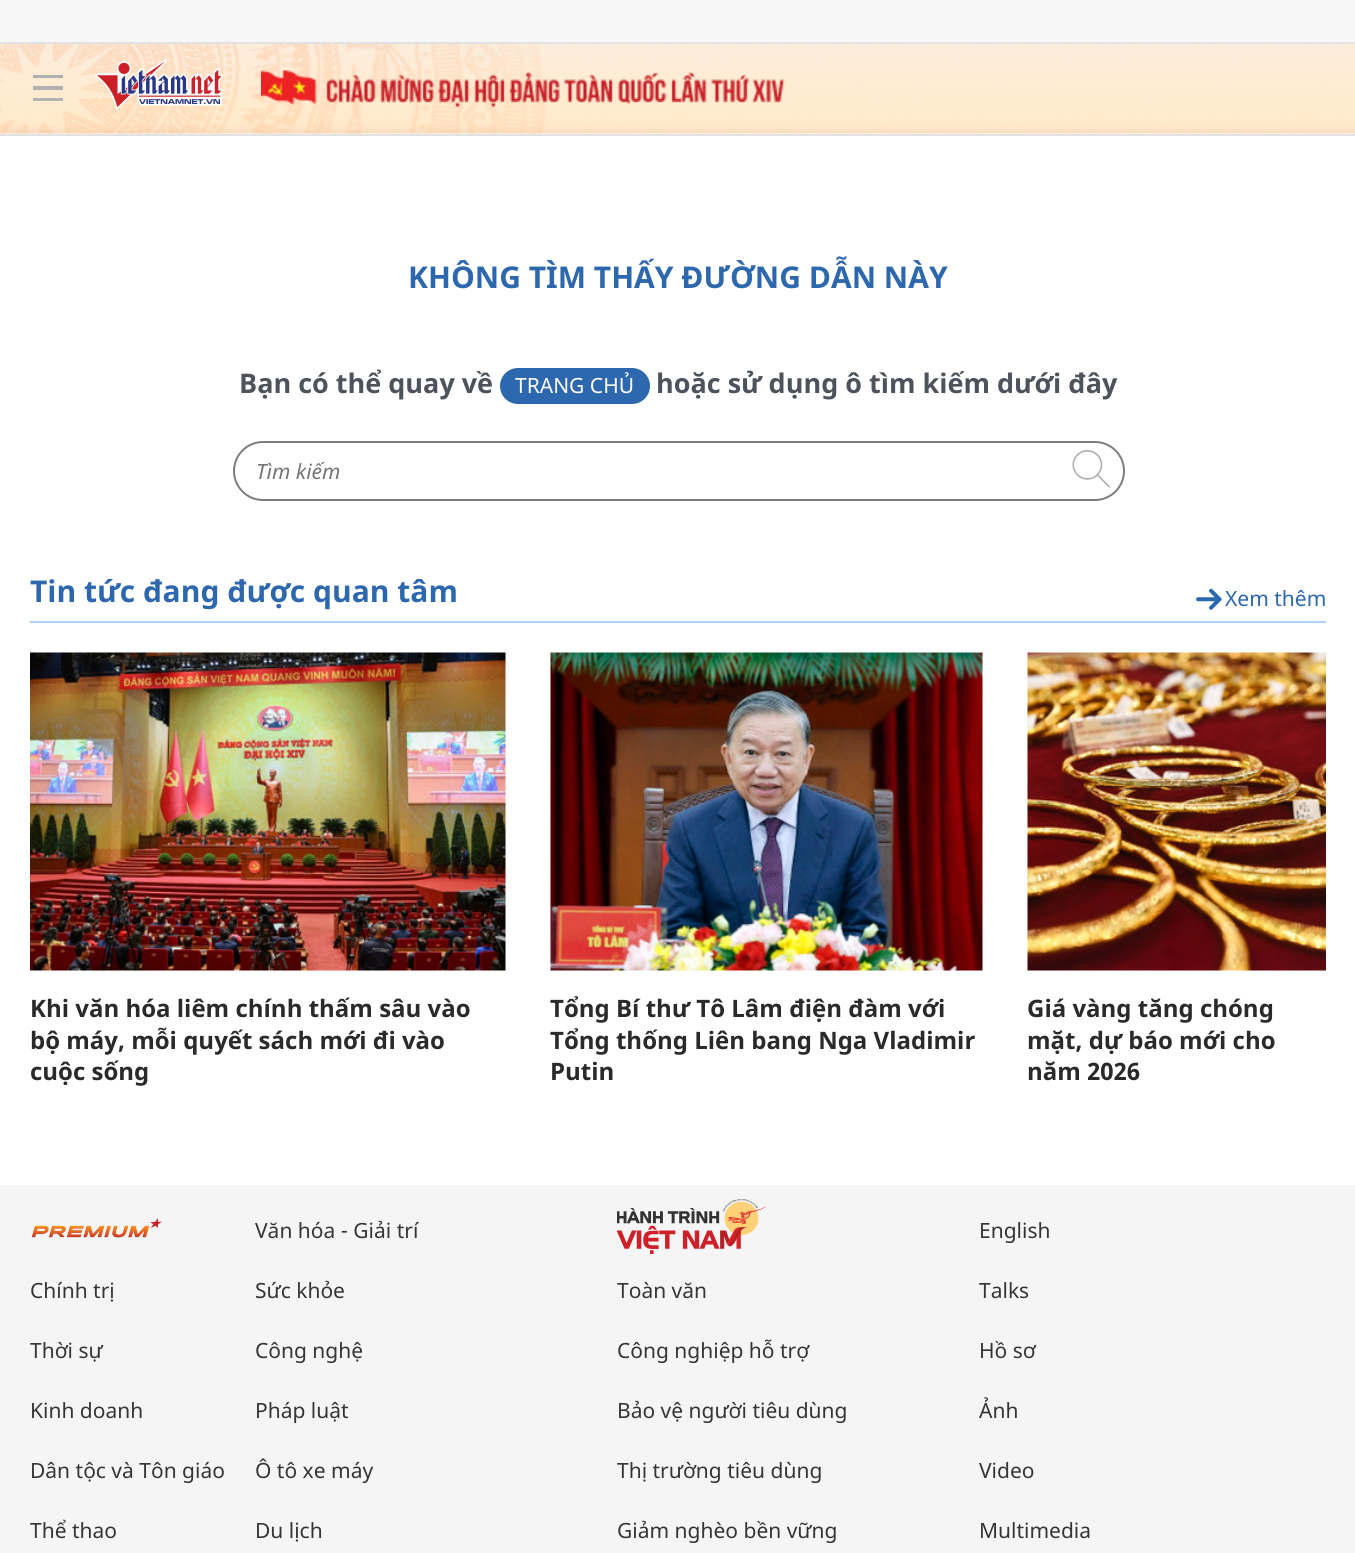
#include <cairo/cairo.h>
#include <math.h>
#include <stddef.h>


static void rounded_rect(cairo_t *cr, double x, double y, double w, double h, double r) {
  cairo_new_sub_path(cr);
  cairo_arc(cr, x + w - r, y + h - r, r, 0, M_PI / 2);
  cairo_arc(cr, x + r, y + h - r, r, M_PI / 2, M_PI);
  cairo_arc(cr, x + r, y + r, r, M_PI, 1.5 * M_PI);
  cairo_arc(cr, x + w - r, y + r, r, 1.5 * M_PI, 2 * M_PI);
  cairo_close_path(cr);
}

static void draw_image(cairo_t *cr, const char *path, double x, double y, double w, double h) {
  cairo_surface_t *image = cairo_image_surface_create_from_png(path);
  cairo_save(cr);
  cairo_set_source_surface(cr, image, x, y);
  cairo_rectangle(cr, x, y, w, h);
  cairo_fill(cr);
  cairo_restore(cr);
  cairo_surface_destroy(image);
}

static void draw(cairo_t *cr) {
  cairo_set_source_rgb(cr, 1, 1, 1);
  cairo_paint(cr);
  cairo_set_source_rgb(cr, 247 / 255.0, 247 / 255.0, 247 / 255.0);
  cairo_rectangle(cr, 0, 0, 1355, 42);
  cairo_fill(cr);
  cairo_set_source_rgb(cr, 226 / 255.0, 226 / 255.0, 226 / 255.0);
  cairo_rectangle(cr, 0, 42, 1355, 2);
  cairo_fill(cr);
  draw_image(cr, "images/1.png", 0, 44, 1355, 90);
  cairo_rectangle(cr, 0, 134, 1355, 2);
  cairo_fill(cr);
  cairo_set_source_rgb(cr, 177 / 255.0, 177 / 255.0, 177 / 255.0);
  cairo_rectangle(cr, 33, 75, 30, 3);
  cairo_fill(cr);
  cairo_rectangle(cr, 33, 86, 30, 4);
  cairo_fill(cr);
  cairo_rectangle(cr, 33, 98, 30, 3);
  cairo_fill(cr);
  draw_image(cr, "images/2.png", 95, 59, 128, 50);
  draw_image(cr, "images/3.png", 261, 70, 524, 37);
  cairo_set_source_rgb(cr, 45 / 255.0, 103 / 255.0, 173 / 255.0);
  rounded_rect(cr, 500, 368, 150, 36, 18);
  cairo_fill(cr);
  rounded_rect(cr, 234, 442, 890, 58, 29);
  cairo_set_source_rgb(cr, 125 / 255.0, 125 / 255.0, 125 / 255.0);
  cairo_stroke(cr);
  draw_image(cr, "images/4.png", 1072, 450, 38, 38);
  cairo_set_source_rgb(cr, 173 / 255.0, 210 / 255.0, 1);
  cairo_rectangle(cr, 30, 621, 1296, 2);
  cairo_fill(cr);
  draw_image(cr, "images/5.png", 1196, 588, 26, 22);
  draw_image(cr, "images/6.png", 30, 652, 476, 319);
  draw_image(cr, "images/7.png", 550, 652, 433, 319);
  draw_image(cr, "images/8.png", 1027, 652, 299, 319);
  cairo_set_source_rgb(cr, 245 / 255.0, 245 / 255.0, 245 / 255.0);
  cairo_rectangle(cr, 0, 1185, 1355, 368);
  cairo_fill(cr);
  draw_image(cr, "images/9.png", 31, 1218, 131, 20);
  draw_image(cr, "images/10.png", 617, 1199, 149, 55);
  cairo_select_font_face(cr, "Noto Sans", CAIRO_FONT_SLANT_NORMAL, CAIRO_FONT_WEIGHT_BOLD);
  cairo_set_font_size(cr, 30);
  cairo_set_source_rgb(cr, 45 / 255.0, 103 / 255.0, 173 / 255.0);
  cairo_move_to(cr, 408, 288);
  cairo_show_text(cr, "KHÔNG TÌM THẤY ĐƯỜNG DẪN NÀY");
  cairo_set_font_size(cr, 27);
  cairo_set_source_rgb(cr, 77 / 255.0, 82 / 255.0, 91 / 255.0);
  cairo_move_to(cr, 239, 393);
  cairo_show_text(cr, "Bạn có thể quay về");
  cairo_select_font_face(cr, "Noto Sans", CAIRO_FONT_SLANT_NORMAL, CAIRO_FONT_WEIGHT_NORMAL);
  cairo_set_font_size(cr, 21);
  cairo_set_source_rgb(cr, 1, 1, 1);
  cairo_move_to(cr, 515, 393);
  cairo_show_text(cr, "TRANG CHỦ");
  cairo_select_font_face(cr, "Noto Sans", CAIRO_FONT_SLANT_NORMAL, CAIRO_FONT_WEIGHT_BOLD);
  cairo_set_font_size(cr, 27);
  cairo_set_source_rgb(cr, 77 / 255.0, 82 / 255.0, 91 / 255.0);
  cairo_move_to(cr, 656, 393);
  cairo_show_text(cr, "hoặc sử dụng ô tìm kiếm dưới đây");
  cairo_select_font_face(cr, "Noto Sans", CAIRO_FONT_SLANT_ITALIC, CAIRO_FONT_WEIGHT_NORMAL);
  cairo_set_font_size(cr, 21);
  cairo_set_source_rgb(cr, 117 / 255.0, 117 / 255.0, 117 / 255.0);
  cairo_move_to(cr, 256, 479);
  cairo_show_text(cr, "Tìm kiếm");
  cairo_select_font_face(cr, "Noto Sans", CAIRO_FONT_SLANT_NORMAL, CAIRO_FONT_WEIGHT_BOLD);
  cairo_set_font_size(cr, 30);
  cairo_set_source_rgb(cr, 45 / 255.0, 103 / 255.0, 173 / 255.0);
  cairo_move_to(cr, 30, 602);
  cairo_show_text(cr, "Tin tức đang được quan tâm");
  cairo_select_font_face(cr, "Noto Sans", CAIRO_FONT_SLANT_NORMAL, CAIRO_FONT_WEIGHT_NORMAL);
  cairo_set_font_size(cr, 21);
  cairo_move_to(cr, 1225, 606);
  cairo_show_text(cr, "Xem thêm");
  cairo_select_font_face(cr, "Noto Sans", CAIRO_FONT_SLANT_NORMAL, CAIRO_FONT_WEIGHT_BOLD);
  cairo_set_font_size(cr, 24);
  cairo_set_source_rgb(cr, 42 / 255.0, 42 / 255.0, 42 / 255.0);
  cairo_move_to(cr, 30, 1017);
  cairo_show_text(cr, "Khi văn hóa liêm chính thấm sâu vào");
  cairo_move_to(cr, 30, 1049);
  cairo_show_text(cr, "bộ máy, mỗi quyết sách mới đi vào");
  cairo_move_to(cr, 30, 1080);
  cairo_show_text(cr, "cuộc sống");
  cairo_move_to(cr, 550, 1017);
  cairo_show_text(cr, "Tổng Bí thư Tô Lâm điện đàm với");
  cairo_move_to(cr, 550, 1049);
  cairo_show_text(cr, "Tổng thống Liên bang Nga Vladimir");
  cairo_move_to(cr, 550, 1080);
  cairo_show_text(cr, "Putin");
  cairo_move_to(cr, 1027, 1017);
  cairo_show_text(cr, "Giá vàng tăng chóng");
  cairo_move_to(cr, 1027, 1049);
  cairo_show_text(cr, "mặt, dự báo mới cho");
  cairo_move_to(cr, 1027, 1080);
  cairo_show_text(cr, "năm 2026");
  cairo_select_font_face(cr, "Noto Sans", CAIRO_FONT_SLANT_NORMAL, CAIRO_FONT_WEIGHT_NORMAL);
  cairo_set_font_size(cr, 21);
  cairo_set_source_rgb(cr, 53 / 255.0, 53 / 255.0, 53 / 255.0);
  cairo_move_to(cr, 255, 1238);
  cairo_show_text(cr, "Văn hóa - Giải trí");
  cairo_move_to(cr, 979, 1238);
  cairo_show_text(cr, "English");
  cairo_move_to(cr, 30, 1298);
  cairo_show_text(cr, "Chính trị");
  cairo_move_to(cr, 255, 1298);
  cairo_show_text(cr, "Sức khỏe");
  cairo_move_to(cr, 617, 1298);
  cairo_show_text(cr, "Toàn văn");
  cairo_move_to(cr, 979, 1298);
  cairo_show_text(cr, "Talks");
  cairo_move_to(cr, 30, 1358);
  cairo_show_text(cr, "Thời sự");
  cairo_move_to(cr, 255, 1358);
  cairo_show_text(cr, "Công nghệ");
  cairo_move_to(cr, 617, 1358);
  cairo_show_text(cr, "Công nghiệp hỗ trợ");
  cairo_move_to(cr, 979, 1358);
  cairo_show_text(cr, "Hồ sơ");
  cairo_move_to(cr, 30, 1418);
  cairo_show_text(cr, "Kinh doanh");
  cairo_move_to(cr, 255, 1418);
  cairo_show_text(cr, "Pháp luật");
  cairo_move_to(cr, 617, 1418);
  cairo_show_text(cr, "Bảo vệ người tiêu dùng");
  cairo_move_to(cr, 979, 1418);
  cairo_show_text(cr, "Ảnh");
  cairo_move_to(cr, 30, 1478);
  cairo_show_text(cr, "Dân tộc và Tôn giáo");
  cairo_move_to(cr, 255, 1478);
  cairo_show_text(cr, "Ô tô xe máy");
  cairo_move_to(cr, 617, 1478);
  cairo_show_text(cr, "Thị trường tiêu dùng");
  cairo_move_to(cr, 979, 1478);
  cairo_show_text(cr, "Video");
  cairo_move_to(cr, 30, 1538);
  cairo_show_text(cr, "Thể thao");
  cairo_move_to(cr, 255, 1538);
  cairo_show_text(cr, "Du lịch");
  cairo_move_to(cr, 617, 1538);
  cairo_show_text(cr, "Giảm nghèo bền vững");
  cairo_move_to(cr, 979, 1538);
  cairo_show_text(cr, "Multimedia");
}

int main(void) {
  cairo_surface_t *surface = cairo_image_surface_create(CAIRO_FORMAT_RGB24, 1355, 1553);
  cairo_t *cr = cairo_create(surface);
  cairo_font_options_t *options = cairo_font_options_create();
  cairo_font_options_set_hint_metrics(options, CAIRO_HINT_METRICS_OFF);
  cairo_font_options_set_hint_style(options, CAIRO_HINT_STYLE_NONE);
  cairo_set_font_options(cr, options);
  cairo_set_miter_limit(cr, 4);
  draw(cr);
  cairo_surface_write_to_png(surface, "out.png");
  cairo_font_options_destroy(options);
  cairo_destroy(cr);
  cairo_surface_destroy(surface);
  return 0;
}
